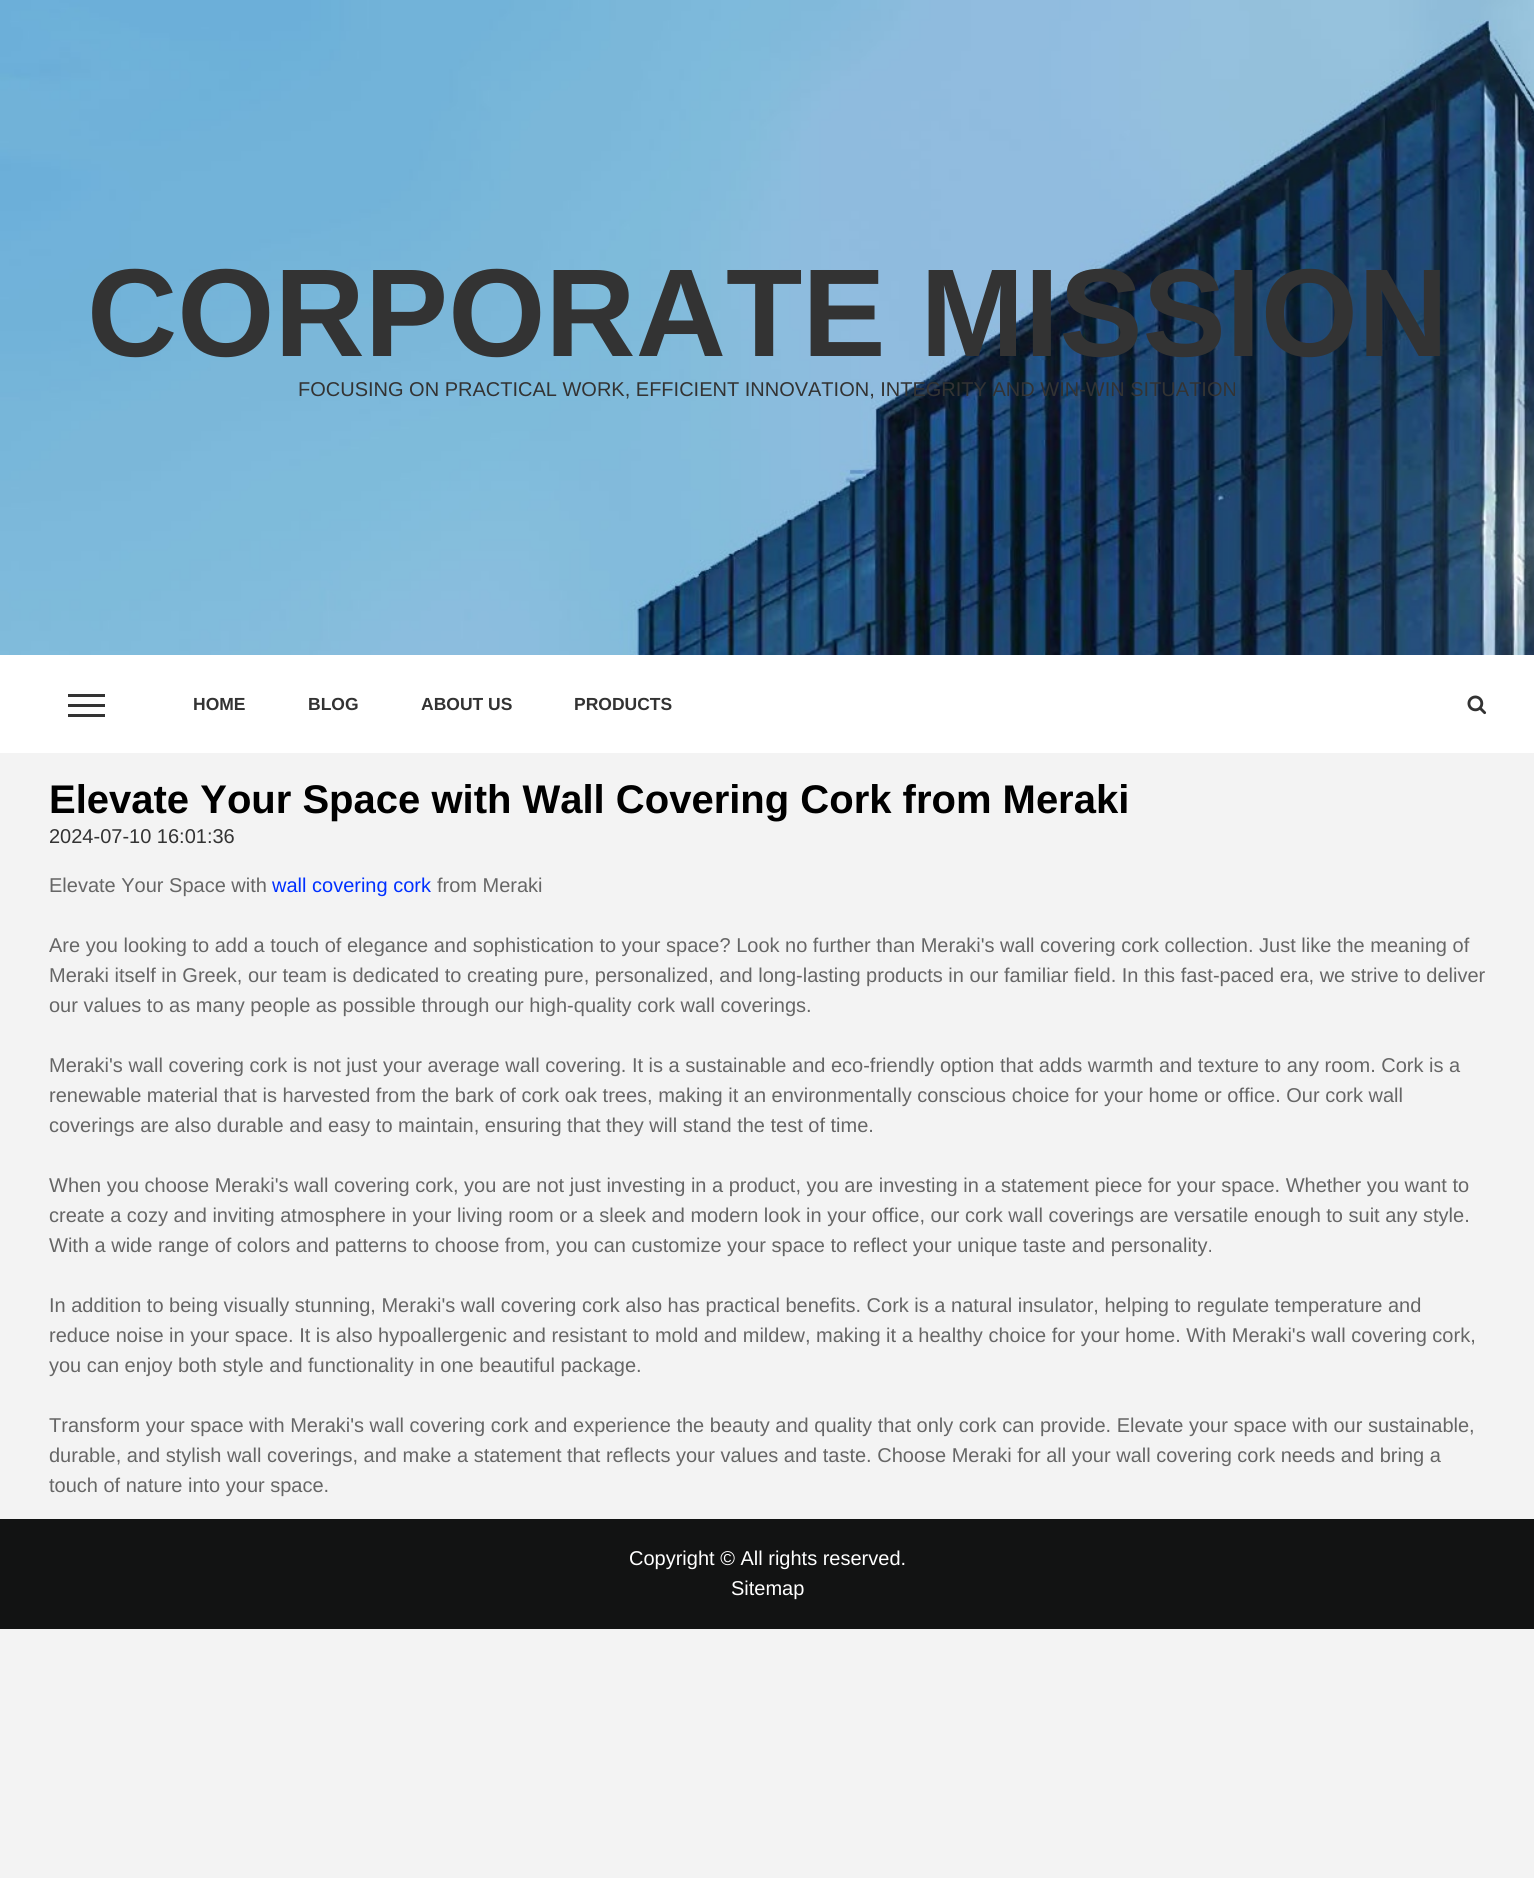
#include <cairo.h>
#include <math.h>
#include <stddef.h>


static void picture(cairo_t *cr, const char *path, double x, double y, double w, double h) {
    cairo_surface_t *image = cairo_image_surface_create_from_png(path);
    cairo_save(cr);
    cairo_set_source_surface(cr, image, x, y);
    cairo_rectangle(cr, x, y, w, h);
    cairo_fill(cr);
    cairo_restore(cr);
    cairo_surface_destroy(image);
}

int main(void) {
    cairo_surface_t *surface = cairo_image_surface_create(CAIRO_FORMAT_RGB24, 1534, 1878);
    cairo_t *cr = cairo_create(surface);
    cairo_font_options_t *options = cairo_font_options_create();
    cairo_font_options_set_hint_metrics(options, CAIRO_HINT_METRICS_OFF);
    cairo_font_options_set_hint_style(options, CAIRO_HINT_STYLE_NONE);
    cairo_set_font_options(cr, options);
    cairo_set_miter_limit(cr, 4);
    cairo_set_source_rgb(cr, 0.953, 0.953, 0.953);
    cairo_paint(cr);
    picture(cr, "img1.png", 0, 0, 1534, 655);
    cairo_select_font_face(cr, "Liberation Sans", CAIRO_FONT_SLANT_NORMAL, CAIRO_FONT_WEIGHT_BOLD);
    cairo_set_font_size(cr, 125);
    cairo_set_source_rgb(cr, 0.2, 0.2, 0.2);
    cairo_move_to(cr, 87, 356);
    cairo_show_text(cr, "CORPORATE MISSION");
    cairo_select_font_face(cr, "Liberation Sans", CAIRO_FONT_SLANT_NORMAL, CAIRO_FONT_WEIGHT_NORMAL);
    cairo_set_font_size(cr, 20);
    cairo_move_to(cr, 298, 396);
    cairo_show_text(cr, "FOCUSING ON PRACTICAL WORK, EFFICIENT INNOVATION, INTEGRITY AND WIN-WIN SITUATION");
    cairo_set_source_rgb(cr, 1, 1, 1);
    cairo_rectangle(cr, 0, 655, 1534, 98);
    cairo_fill(cr);
    cairo_set_source_rgb(cr, 0.2, 0.2, 0.2);
    cairo_rectangle(cr, 68, 694, 37, 3);
    cairo_fill(cr);
    cairo_rectangle(cr, 68, 704, 37, 3);
    cairo_fill(cr);
    cairo_rectangle(cr, 68, 714, 37, 3);
    cairo_fill(cr);
    cairo_select_font_face(cr, "Liberation Sans", CAIRO_FONT_SLANT_NORMAL, CAIRO_FONT_WEIGHT_BOLD);
    cairo_set_font_size(cr, 17.5);
    cairo_move_to(cr, 193, 710);
    cairo_show_text(cr, "HOME");
    cairo_move_to(cr, 308, 710);
    cairo_show_text(cr, "BLOG");
    cairo_move_to(cr, 421, 710);
    cairo_show_text(cr, "ABOUT US");
    cairo_move_to(cr, 574, 710);
    cairo_show_text(cr, "PRODUCTS");
    picture(cr, "img2.png", 1467, 695, 20, 20);
    cairo_set_font_size(cr, 40);
    cairo_set_source_rgb(cr, 0, 0, 0);
    cairo_move_to(cr, 49, 813);
    cairo_show_text(cr, "Elevate Your Space with Wall Covering Cork from Meraki");
    cairo_select_font_face(cr, "Liberation Sans", CAIRO_FONT_SLANT_NORMAL, CAIRO_FONT_WEIGHT_NORMAL);
    cairo_set_font_size(cr, 20);
    cairo_set_source_rgb(cr, 0.2, 0.2, 0.2);
    cairo_move_to(cr, 49, 843);
    cairo_show_text(cr, "2024-07-10 16:01:36");
    cairo_set_source_rgb(cr, 0.4, 0.4, 0.4);
    cairo_move_to(cr, 49, 892);
    cairo_show_text(cr, "Elevate Your Space with");
    cairo_set_source_rgb(cr, 0, 0.188, 1);
    cairo_move_to(cr, 272, 892);
    cairo_show_text(cr, "wall covering cork");
    cairo_set_source_rgb(cr, 0.4, 0.4, 0.4);
    cairo_move_to(cr, 437, 892);
    cairo_show_text(cr, "from Meraki");
    cairo_move_to(cr, 49, 952);
    cairo_show_text(cr, "Are you looking to add a touch of elegance and sophistication to your space? Look no further than Meraki's wall covering cork collection. Just like the meaning of");
    cairo_move_to(cr, 49, 982);
    cairo_show_text(cr, "Meraki itself in Greek, our team is dedicated to creating pure, personalized, and long-lasting products in our familiar field. In this fast-paced era, we strive to deliver");
    cairo_move_to(cr, 49, 1012);
    cairo_show_text(cr, "our values to as many people as possible through our high-quality cork wall coverings.");
    cairo_move_to(cr, 49, 1072);
    cairo_show_text(cr, "Meraki's wall covering cork is not just your average wall covering. It is a sustainable and eco-friendly option that adds warmth and texture to any room. Cork is a");
    cairo_move_to(cr, 49, 1102);
    cairo_show_text(cr, "renewable material that is harvested from the bark of cork oak trees, making it an environmentally conscious choice for your home or office. Our cork wall");
    cairo_move_to(cr, 49, 1132);
    cairo_show_text(cr, "coverings are also durable and easy to maintain, ensuring that they will stand the test of time.");
    cairo_move_to(cr, 49, 1192);
    cairo_show_text(cr, "When you choose Meraki's wall covering cork, you are not just investing in a product, you are investing in a statement piece for your space. Whether you want to");
    cairo_move_to(cr, 49, 1222);
    cairo_show_text(cr, "create a cozy and inviting atmosphere in your living room or a sleek and modern look in your office, our cork wall coverings are versatile enough to suit any style.");
    cairo_move_to(cr, 49, 1252);
    cairo_show_text(cr, "With a wide range of colors and patterns to choose from, you can customize your space to reflect your unique taste and personality.");
    cairo_move_to(cr, 49, 1312);
    cairo_show_text(cr, "In addition to being visually stunning, Meraki's wall covering cork also has practical benefits. Cork is a natural insulator, helping to regulate temperature and");
    cairo_move_to(cr, 49, 1342);
    cairo_show_text(cr, "reduce noise in your space. It is also hypoallergenic and resistant to mold and mildew, making it a healthy choice for your home. With Meraki's wall covering cork,");
    cairo_move_to(cr, 49, 1372);
    cairo_show_text(cr, "you can enjoy both style and functionality in one beautiful package.");
    cairo_move_to(cr, 49, 1432);
    cairo_show_text(cr, "Transform your space with Meraki's wall covering cork and experience the beauty and quality that only cork can provide. Elevate your space with our sustainable,");
    cairo_move_to(cr, 49, 1462);
    cairo_show_text(cr, "durable, and stylish wall coverings, and make a statement that reflects your values and taste. Choose Meraki for all your wall covering cork needs and bring a");
    cairo_move_to(cr, 49, 1492);
    cairo_show_text(cr, "touch of nature into your space.");
    cairo_set_source_rgb(cr, 0.071, 0.075, 0.078);
    cairo_rectangle(cr, 0, 1519, 1534, 110);
    cairo_fill(cr);
    cairo_set_source_rgb(cr, 1, 1, 1);
    cairo_move_to(cr, 629, 1565);
    cairo_show_text(cr, "Copyright © All rights reserved.");
    cairo_move_to(cr, 731, 1595);
    cairo_show_text(cr, "Sitemap");
    cairo_surface_write_to_png(surface, "page.png");
    cairo_font_options_destroy(options);
    cairo_destroy(cr);
    cairo_surface_destroy(surface);
    return 0;
}
